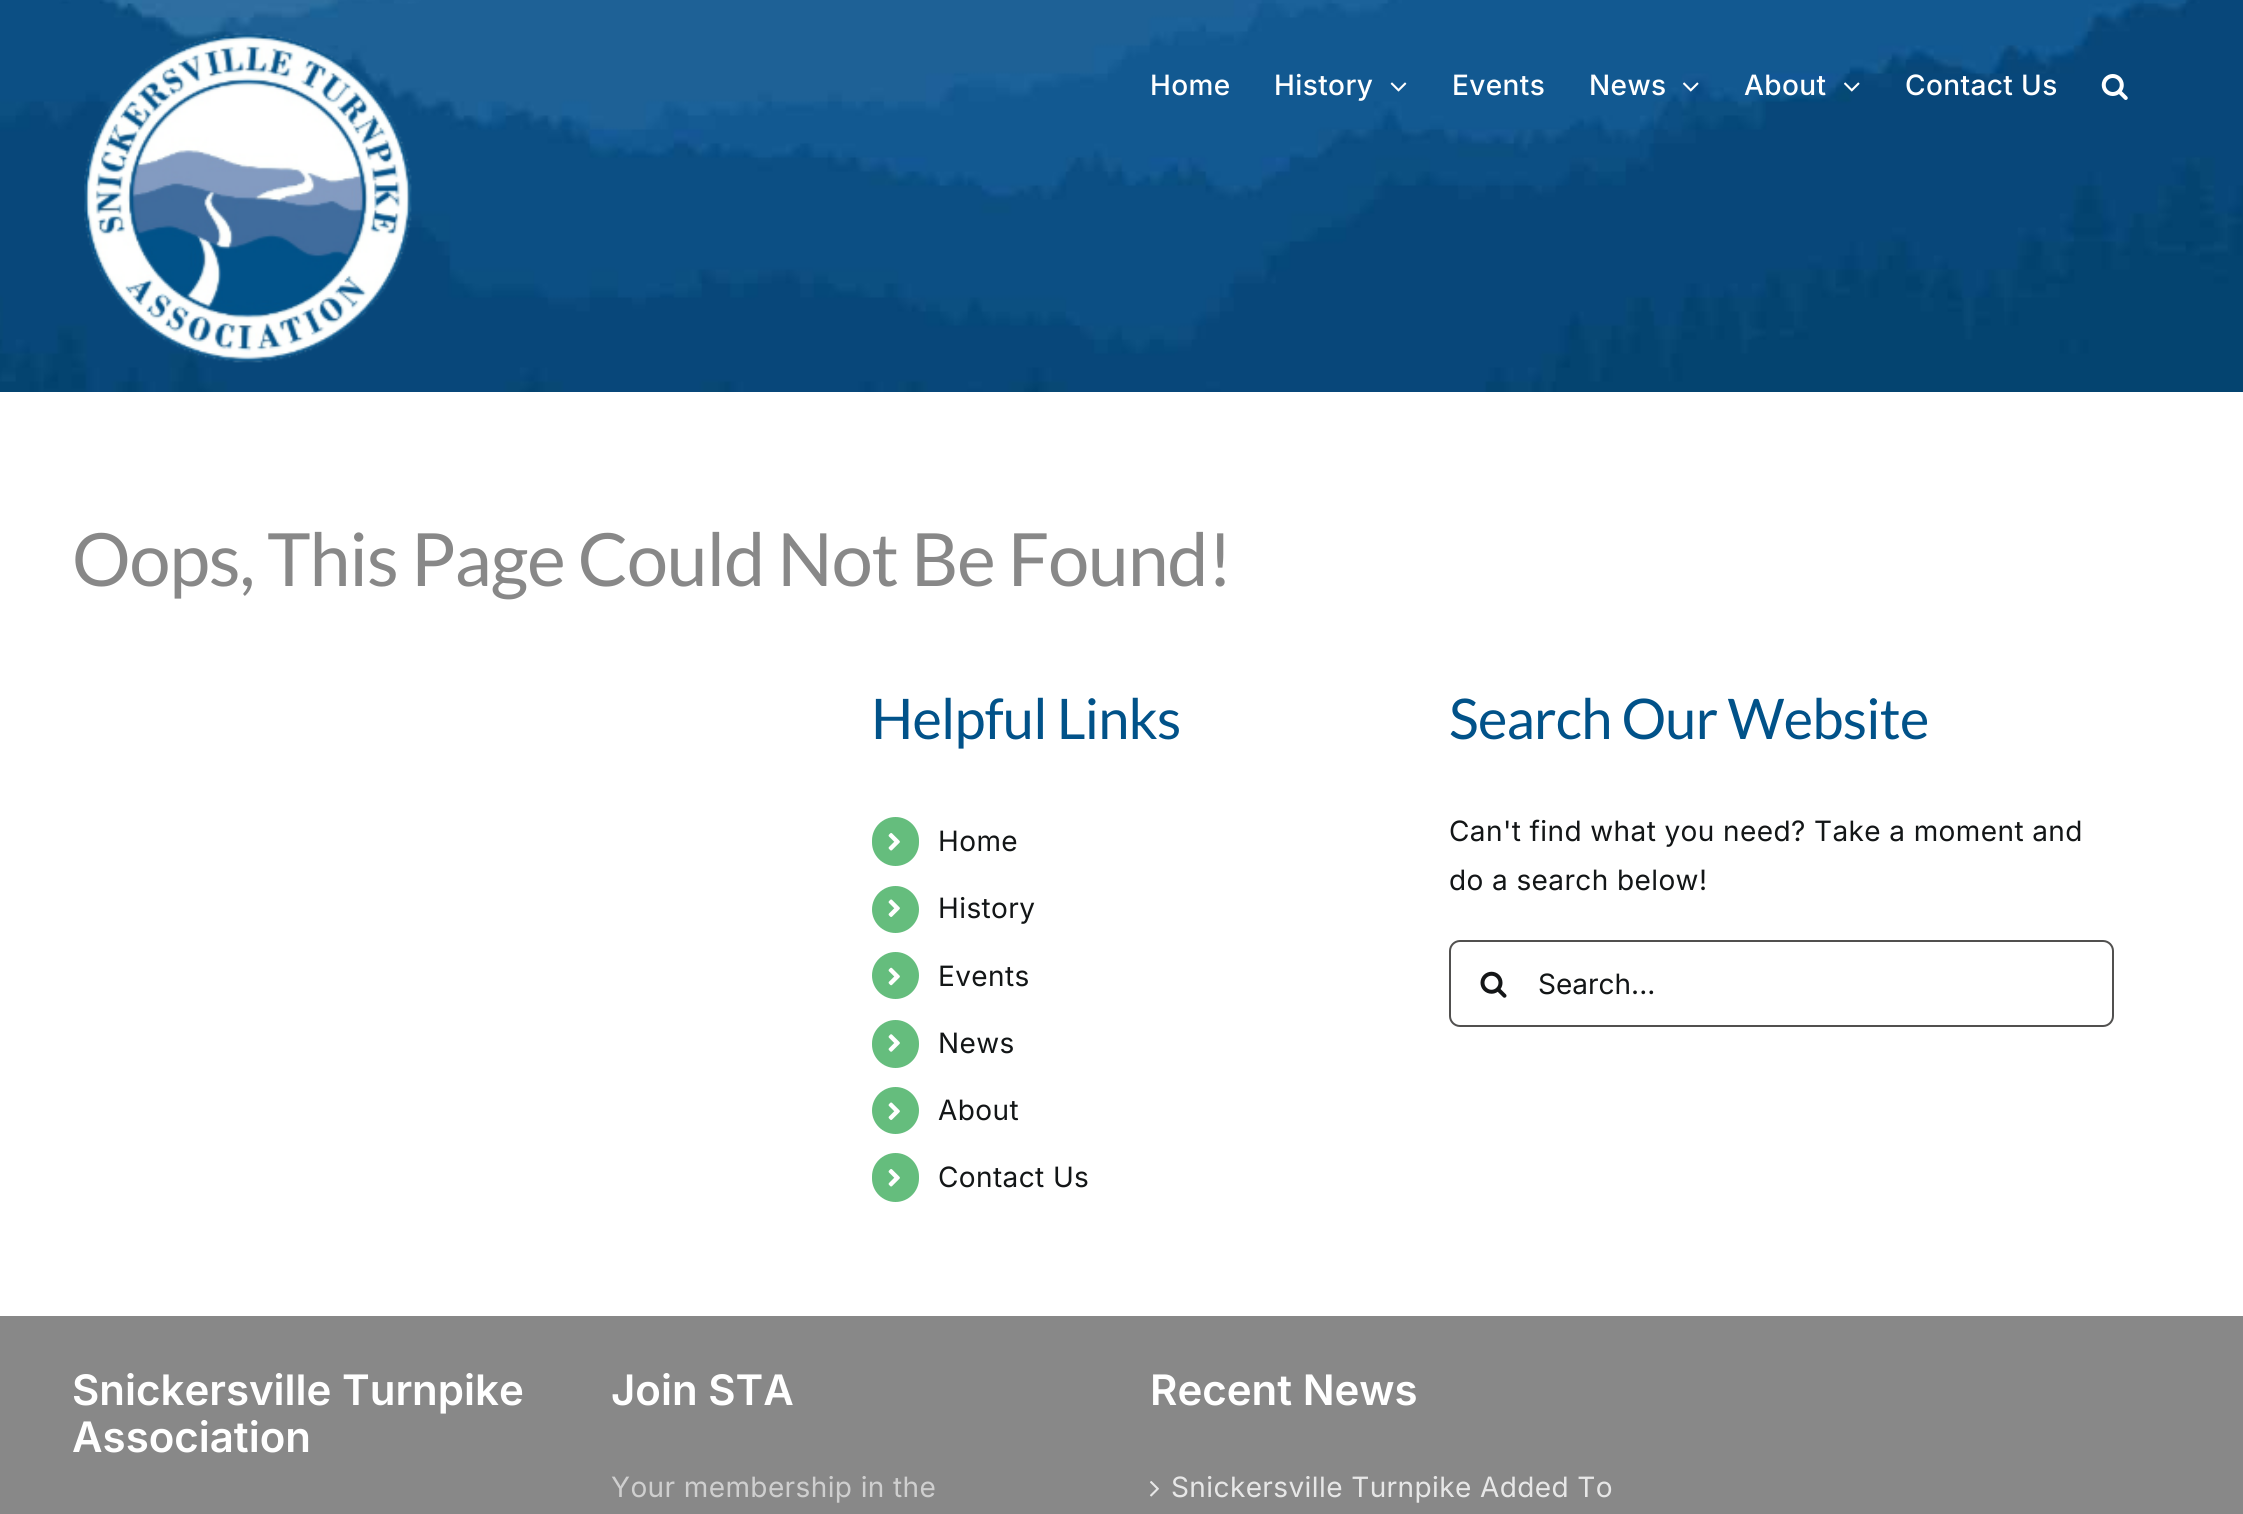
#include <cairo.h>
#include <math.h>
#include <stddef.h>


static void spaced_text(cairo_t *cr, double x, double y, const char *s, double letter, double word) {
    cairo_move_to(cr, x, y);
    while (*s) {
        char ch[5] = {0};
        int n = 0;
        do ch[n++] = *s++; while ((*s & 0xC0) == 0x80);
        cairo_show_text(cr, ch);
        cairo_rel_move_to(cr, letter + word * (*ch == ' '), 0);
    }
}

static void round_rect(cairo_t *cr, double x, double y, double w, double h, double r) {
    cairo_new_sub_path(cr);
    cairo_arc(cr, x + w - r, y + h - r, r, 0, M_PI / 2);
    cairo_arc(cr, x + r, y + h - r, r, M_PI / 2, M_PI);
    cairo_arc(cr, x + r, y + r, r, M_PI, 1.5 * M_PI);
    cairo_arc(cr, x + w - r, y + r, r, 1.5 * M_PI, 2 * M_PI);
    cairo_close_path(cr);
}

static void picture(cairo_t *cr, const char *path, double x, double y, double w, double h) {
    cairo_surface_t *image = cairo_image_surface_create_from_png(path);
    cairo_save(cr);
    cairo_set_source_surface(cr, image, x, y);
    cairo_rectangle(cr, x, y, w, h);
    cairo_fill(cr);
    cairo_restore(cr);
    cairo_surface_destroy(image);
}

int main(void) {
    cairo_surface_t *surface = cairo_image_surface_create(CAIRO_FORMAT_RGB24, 2243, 1514);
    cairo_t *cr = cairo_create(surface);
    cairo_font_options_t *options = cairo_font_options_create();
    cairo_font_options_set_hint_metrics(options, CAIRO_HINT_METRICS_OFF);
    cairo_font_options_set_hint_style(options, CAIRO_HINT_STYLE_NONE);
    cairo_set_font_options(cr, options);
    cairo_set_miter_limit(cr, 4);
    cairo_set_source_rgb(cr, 1, 1, 1);
    cairo_paint(cr);
    picture(cr, "img1.png", 0, 0, 2243, 392);
    picture(cr, "img2.png", 84, 33, 328, 330);
    cairo_select_font_face(cr, "Inter Medium", CAIRO_FONT_SLANT_NORMAL, CAIRO_FONT_WEIGHT_NORMAL);
    cairo_set_font_size(cr, 28);
    cairo_set_source_rgb(cr, 1, 1, 1);
    spaced_text(cr, 1150, 95, "Home", 0.4, 0);
    spaced_text(cr, 1274, 95, "History", 0.4, 0);
    picture(cr, "img3.png", 1390, 82, 17, 10);
    spaced_text(cr, 1452, 95, "Events", 0.4, 0);
    spaced_text(cr, 1589, 95, "News", 0.4, 0);
    picture(cr, "img4.png", 1683, 82, 16, 10);
    spaced_text(cr, 1744, 95, "About", 0.4, 0);
    picture(cr, "img5.png", 1844, 82, 16, 10);
    spaced_text(cr, 1905, 95, "Contact Us", 0.4, 0);
    picture(cr, "img6.png", 2101, 74, 27, 26);
    cairo_select_font_face(cr, "Lato", CAIRO_FONT_SLANT_NORMAL, CAIRO_FONT_WEIGHT_NORMAL);
    cairo_set_font_size(cr, 73.5);
    cairo_set_source_rgb(cr, 0.533, 0.533, 0.533);
    spaced_text(cr, 72, 586, "Oops, This Page Could Not Be Found!", -1.1, 0);
    cairo_set_font_size(cr, 56);
    cairo_set_source_rgb(cr, 0.004, 0.322, 0.537);
    spaced_text(cr, 871, 739, "Helpful Links", -0.8, 0);
    cairo_set_source_rgb(cr, 0.396, 0.741, 0.49);
    round_rect(cr, 872, 817, 47, 49, 23.5);
    cairo_fill(cr);
    picture(cr, "img7.png", 888, 833, 12, 18);
    cairo_select_font_face(cr, "Inter", CAIRO_FONT_SLANT_NORMAL, CAIRO_FONT_WEIGHT_NORMAL);
    cairo_set_font_size(cr, 28);
    cairo_set_source_rgb(cr, 0.078, 0.086, 0.09);
    spaced_text(cr, 938, 851, "Home", 0.4, 0);
    cairo_set_source_rgb(cr, 0.396, 0.741, 0.49);
    cairo_new_path(cr);
    cairo_arc(cr, 895.5, 909.5, 23.5, 0, 2 * M_PI);
    cairo_fill(cr);
    picture(cr, "img8.png", 888, 899, 12, 18);
    cairo_set_source_rgb(cr, 0.078, 0.086, 0.09);
    spaced_text(cr, 938, 918, "History", 0.4, 0);
    cairo_set_source_rgb(cr, 0.396, 0.741, 0.49);
    cairo_new_path(cr);
    cairo_arc(cr, 895.5, 975.5, 23.5, 0, 2 * M_PI);
    cairo_fill(cr);
    picture(cr, "img9.png", 888, 967, 12, 19);
    cairo_set_source_rgb(cr, 0.078, 0.086, 0.09);
    spaced_text(cr, 938, 986, "Events", 0.4, 0);
    cairo_set_source_rgb(cr, 0.396, 0.741, 0.49);
    round_rect(cr, 872, 1020, 47, 48, 23.5);
    cairo_fill(cr);
    picture(cr, "img10.png", 888, 1034, 12, 18);
    cairo_set_source_rgb(cr, 0.078, 0.086, 0.09);
    spaced_text(cr, 938, 1053, "News", 0.4, 0);
    cairo_set_source_rgb(cr, 0.396, 0.741, 0.49);
    cairo_new_path(cr);
    cairo_arc(cr, 895.5, 1110.5, 23.5, 0, 2 * M_PI);
    cairo_fill(cr);
    picture(cr, "img8.png", 888, 1102, 12, 18);
    cairo_set_source_rgb(cr, 0.078, 0.086, 0.09);
    spaced_text(cr, 938, 1120, "About", 0.4, 0);
    cairo_set_source_rgb(cr, 0.396, 0.741, 0.49);
    round_rect(cr, 872, 1153, 47, 49, 23.5);
    cairo_fill(cr);
    picture(cr, "img7.png", 888, 1169, 12, 18);
    cairo_set_source_rgb(cr, 0.078, 0.086, 0.09);
    spaced_text(cr, 938, 1187, "Contact Us", 0.4, 0);
    cairo_select_font_face(cr, "Lato", CAIRO_FONT_SLANT_NORMAL, CAIRO_FONT_WEIGHT_NORMAL);
    cairo_set_font_size(cr, 56);
    cairo_set_source_rgb(cr, 0.004, 0.322, 0.537);
    spaced_text(cr, 1449, 739, "Search Our Website", -0.8, 0);
    cairo_select_font_face(cr, "Inter", CAIRO_FONT_SLANT_NORMAL, CAIRO_FONT_WEIGHT_NORMAL);
    cairo_set_font_size(cr, 28);
    cairo_set_source_rgb(cr, 0.078, 0.086, 0.09);
    spaced_text(cr, 1449, 841, "Can't find what you need? Take a moment and", 0.4, 0);
    spaced_text(cr, 1449, 890, "do a search below!", 0.4, 0);
    round_rect(cr, 1450, 941, 663, 85, 10);
    cairo_set_source_rgb(cr, 0.318, 0.314, 0.31);
    cairo_stroke(cr);
    picture(cr, "img11.png", 1480, 971, 27, 27);
    cairo_set_source_rgb(cr, 0.078, 0.086, 0.09);
    cairo_move_to(cr, 1538, 994);
    cairo_show_text(cr, "Search...");
    cairo_set_source_rgb(cr, 0.533, 0.533, 0.533);
    cairo_rectangle(cr, 0, 1316, 2243, 198);
    cairo_fill(cr);
    cairo_select_font_face(cr, "Inter SemiBold", CAIRO_FONT_SLANT_NORMAL, CAIRO_FONT_WEIGHT_NORMAL);
    cairo_set_font_size(cr, 42);
    cairo_set_source_rgb(cr, 1, 1, 1);
    cairo_move_to(cr, 72, 1405);
    cairo_show_text(cr, "Snickersville Turnpike");
    cairo_move_to(cr, 72, 1452);
    cairo_show_text(cr, "Association");
    cairo_move_to(cr, 611, 1405);
    cairo_show_text(cr, "Join STA");
    cairo_select_font_face(cr, "Inter", CAIRO_FONT_SLANT_NORMAL, CAIRO_FONT_WEIGHT_NORMAL);
    cairo_set_font_size(cr, 28);
    cairo_set_source_rgb(cr, 0.812, 0.812, 0.812);
    spaced_text(cr, 611, 1497, "Your membership in the", 0.4, 0);
    cairo_select_font_face(cr, "Inter SemiBold", CAIRO_FONT_SLANT_NORMAL, CAIRO_FONT_WEIGHT_NORMAL);
    cairo_set_font_size(cr, 42);
    cairo_set_source_rgb(cr, 1, 1, 1);
    cairo_move_to(cr, 1150, 1405);
    cairo_show_text(cr, "Recent News");
    picture(cr, "img12.png", 1150, 1481, 9, 16);
    cairo_select_font_face(cr, "Inter", CAIRO_FONT_SLANT_NORMAL, CAIRO_FONT_WEIGHT_NORMAL);
    cairo_set_font_size(cr, 28);
    cairo_set_source_rgb(cr, 0.906, 0.906, 0.906);
    spaced_text(cr, 1171, 1497, "Snickersville Turnpike Added To", 0.4, 0);
    cairo_surface_write_to_png(surface, "page.png");
    cairo_font_options_destroy(options);
    cairo_destroy(cr);
    cairo_surface_destroy(surface);
    return 0;
}
